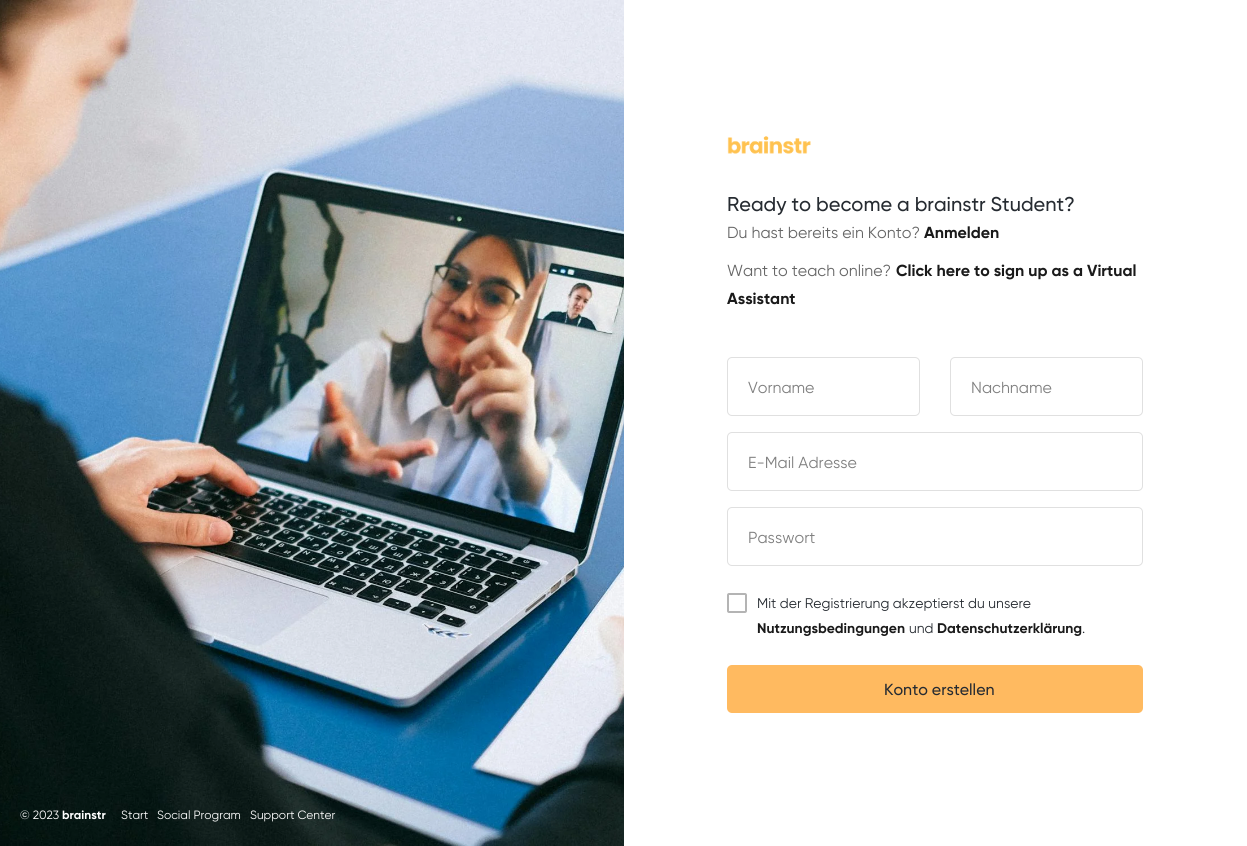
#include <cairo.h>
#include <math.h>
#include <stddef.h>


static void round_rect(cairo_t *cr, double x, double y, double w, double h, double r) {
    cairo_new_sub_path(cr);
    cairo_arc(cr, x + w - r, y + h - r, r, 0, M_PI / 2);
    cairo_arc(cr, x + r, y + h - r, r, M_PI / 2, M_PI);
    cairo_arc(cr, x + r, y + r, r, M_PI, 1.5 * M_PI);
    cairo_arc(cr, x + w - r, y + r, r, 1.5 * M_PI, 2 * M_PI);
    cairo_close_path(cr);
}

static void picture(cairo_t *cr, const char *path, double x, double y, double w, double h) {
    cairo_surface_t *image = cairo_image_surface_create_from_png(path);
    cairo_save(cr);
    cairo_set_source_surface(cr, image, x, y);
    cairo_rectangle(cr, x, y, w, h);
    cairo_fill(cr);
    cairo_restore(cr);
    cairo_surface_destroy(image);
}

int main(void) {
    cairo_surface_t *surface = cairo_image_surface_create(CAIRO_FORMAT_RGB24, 1247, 846);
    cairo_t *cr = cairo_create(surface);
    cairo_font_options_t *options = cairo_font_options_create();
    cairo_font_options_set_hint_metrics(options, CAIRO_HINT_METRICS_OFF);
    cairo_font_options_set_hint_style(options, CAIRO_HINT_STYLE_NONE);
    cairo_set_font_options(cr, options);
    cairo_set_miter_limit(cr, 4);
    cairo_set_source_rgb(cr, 1, 1, 1);
    cairo_paint(cr);
    picture(cr, "img1.png", 727, 136, 84, 18);
    cairo_select_font_face(cr, "Gilroy Medium", CAIRO_FONT_SLANT_NORMAL, CAIRO_FONT_WEIGHT_NORMAL);
    cairo_set_font_size(cr, 20);
    cairo_set_source_rgb(cr, 0.149, 0.169, 0.192);
    cairo_move_to(cr, 727, 211);
    cairo_show_text(cr, "Ready to become a brainstr Student?");
    cairo_select_font_face(cr, "Gilroy", CAIRO_FONT_SLANT_NORMAL, CAIRO_FONT_WEIGHT_NORMAL);
    cairo_set_font_size(cr, 16);
    cairo_set_source_rgb(cr, 0.4, 0.4, 0.4);
    cairo_move_to(cr, 727, 238);
    cairo_show_text(cr, "Du hast bereits ein Konto?");
    cairo_select_font_face(cr, "Gilroy", CAIRO_FONT_SLANT_NORMAL, CAIRO_FONT_WEIGHT_BOLD);
    cairo_set_source_rgb(cr, 0.102, 0.102, 0.102);
    cairo_move_to(cr, 924, 238);
    cairo_show_text(cr, "Anmelden");
    cairo_select_font_face(cr, "Gilroy", CAIRO_FONT_SLANT_NORMAL, CAIRO_FONT_WEIGHT_NORMAL);
    cairo_set_source_rgb(cr, 0.4, 0.4, 0.4);
    cairo_move_to(cr, 727, 276);
    cairo_show_text(cr, "Want to teach online?");
    cairo_select_font_face(cr, "Gilroy", CAIRO_FONT_SLANT_NORMAL, CAIRO_FONT_WEIGHT_BOLD);
    cairo_set_source_rgb(cr, 0.102, 0.102, 0.102);
    cairo_move_to(cr, 896, 276);
    cairo_show_text(cr, "Click here to sign up as a Virtual");
    cairo_move_to(cr, 727, 304);
    cairo_show_text(cr, "Assistant");
    round_rect(cr, 727.5, 357.5, 192, 58, 4.5);
    cairo_set_source_rgb(cr, 0.878, 0.878, 0.878);
    cairo_set_line_width(cr, 1);
    cairo_stroke(cr);
    cairo_select_font_face(cr, "Gilroy", CAIRO_FONT_SLANT_NORMAL, CAIRO_FONT_WEIGHT_NORMAL);
    cairo_set_source_rgb(cr, 0.502, 0.502, 0.502);
    cairo_move_to(cr, 748, 393);
    cairo_show_text(cr, "Vorname");
    round_rect(cr, 950.5, 357.5, 192, 58, 4.5);
    cairo_set_source_rgb(cr, 0.878, 0.878, 0.878);
    cairo_stroke(cr);
    cairo_set_source_rgb(cr, 0.502, 0.502, 0.502);
    cairo_move_to(cr, 971, 393);
    cairo_show_text(cr, "Nachname");
    round_rect(cr, 727.5, 432.5, 415, 58, 4.5);
    cairo_set_source_rgb(cr, 0.878, 0.878, 0.878);
    cairo_stroke(cr);
    cairo_set_source_rgb(cr, 0.502, 0.502, 0.502);
    cairo_move_to(cr, 748, 468);
    cairo_show_text(cr, "E-Mail Adresse");
    round_rect(cr, 727.5, 507.5, 415, 58, 4.5);
    cairo_set_source_rgb(cr, 0.878, 0.878, 0.878);
    cairo_stroke(cr);
    cairo_set_source_rgb(cr, 0.502, 0.502, 0.502);
    cairo_move_to(cr, 748, 543);
    cairo_show_text(cr, "Passwort");
    round_rect(cr, 728, 594, 18, 18, 1);
    cairo_set_source_rgb(cr, 0.706, 0.706, 0.706);
    cairo_set_line_width(cr, 2);
    cairo_stroke(cr);
    cairo_set_font_size(cr, 14);
    cairo_set_source_rgb(cr, 0.149, 0.169, 0.192);
    cairo_move_to(cr, 757, 608);
    cairo_show_text(cr, "Mit der Registrierung akzeptierst du unsere");
    cairo_select_font_face(cr, "Gilroy", CAIRO_FONT_SLANT_NORMAL, CAIRO_FONT_WEIGHT_BOLD);
    cairo_set_source_rgb(cr, 0.102, 0.102, 0.102);
    cairo_move_to(cr, 757, 633);
    cairo_show_text(cr, "Nutzungsbedingungen");
    cairo_select_font_face(cr, "Gilroy", CAIRO_FONT_SLANT_NORMAL, CAIRO_FONT_WEIGHT_NORMAL);
    cairo_set_source_rgb(cr, 0.149, 0.169, 0.192);
    cairo_move_to(cr, 909, 633);
    cairo_show_text(cr, "und");
    cairo_select_font_face(cr, "Gilroy", CAIRO_FONT_SLANT_NORMAL, CAIRO_FONT_WEIGHT_BOLD);
    cairo_set_source_rgb(cr, 0.102, 0.102, 0.102);
    cairo_move_to(cr, 937, 633);
    cairo_show_text(cr, "Datenschutzerklärung");
    cairo_select_font_face(cr, "Gilroy", CAIRO_FONT_SLANT_NORMAL, CAIRO_FONT_WEIGHT_NORMAL);
    cairo_set_source_rgb(cr, 0.149, 0.169, 0.192);
    cairo_move_to(cr, 1082, 633);
    cairo_show_text(cr, ".");
    cairo_set_source_rgb(cr, 1, 0.729, 0.376);
    round_rect(cr, 727, 665, 416, 48, 5);
    cairo_fill(cr);
    cairo_select_font_face(cr, "Gilroy Medium", CAIRO_FONT_SLANT_NORMAL, CAIRO_FONT_WEIGHT_NORMAL);
    cairo_set_font_size(cr, 16);
    cairo_set_source_rgb(cr, 0.149, 0.169, 0.192);
    cairo_move_to(cr, 884, 695);
    cairo_show_text(cr, "Konto erstellen");
    picture(cr, "img2.png", 0, 0, 624, 846);
    cairo_select_font_face(cr, "Gilroy", CAIRO_FONT_SLANT_NORMAL, CAIRO_FONT_WEIGHT_NORMAL);
    cairo_set_font_size(cr, 12);
    cairo_set_source_rgb(cr, 1, 1, 1);
    cairo_move_to(cr, 20, 819);
    cairo_show_text(cr, "© 2023");
    cairo_select_font_face(cr, "Gilroy", CAIRO_FONT_SLANT_NORMAL, CAIRO_FONT_WEIGHT_BOLD);
    cairo_move_to(cr, 62, 819);
    cairo_show_text(cr, "brainstr");
    cairo_select_font_face(cr, "Gilroy", CAIRO_FONT_SLANT_NORMAL, CAIRO_FONT_WEIGHT_NORMAL);
    cairo_move_to(cr, 121, 819);
    cairo_show_text(cr, "Start");
    cairo_move_to(cr, 157, 819);
    cairo_show_text(cr, "Social Program");
    cairo_move_to(cr, 250, 819);
    cairo_show_text(cr, "Support Center");
    cairo_surface_write_to_png(surface, "page.png");
    cairo_font_options_destroy(options);
    cairo_destroy(cr);
    cairo_surface_destroy(surface);
    return 0;
}
